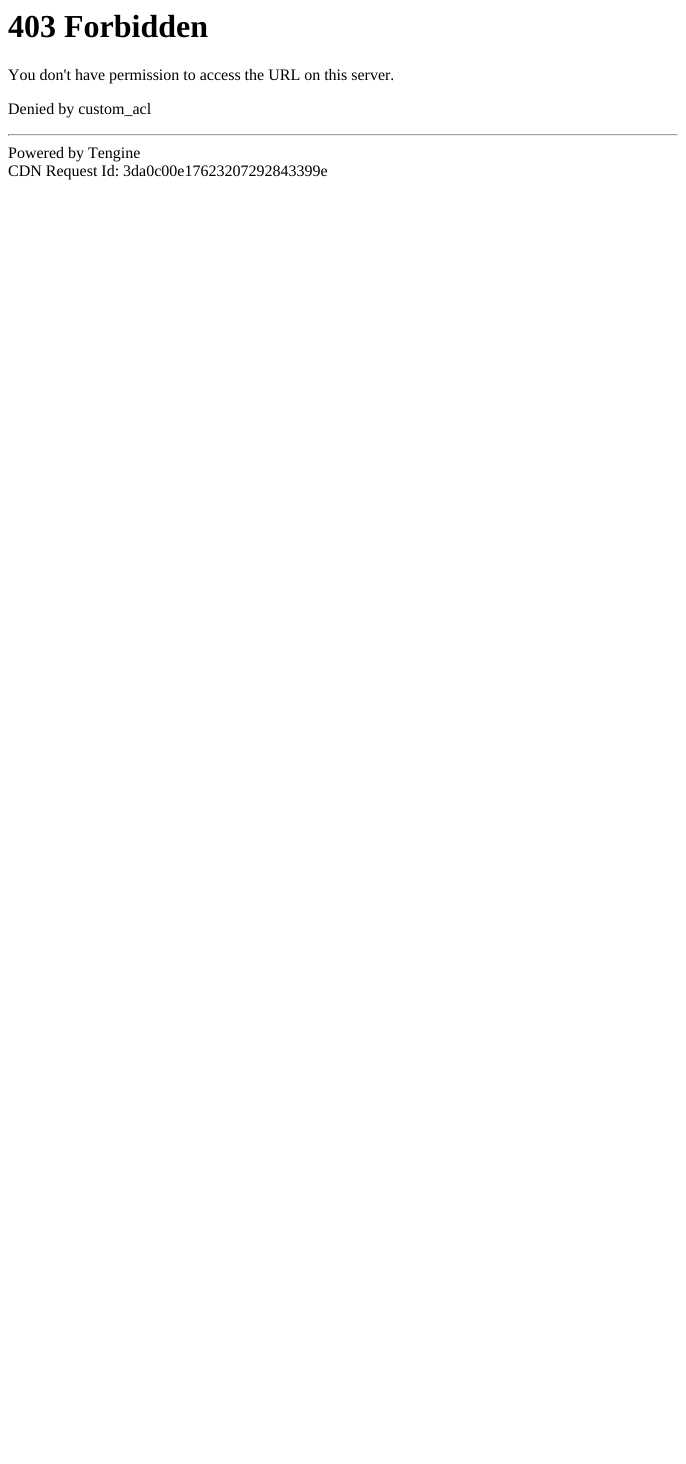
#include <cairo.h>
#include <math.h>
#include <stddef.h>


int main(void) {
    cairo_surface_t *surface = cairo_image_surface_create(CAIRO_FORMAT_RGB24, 686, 1464);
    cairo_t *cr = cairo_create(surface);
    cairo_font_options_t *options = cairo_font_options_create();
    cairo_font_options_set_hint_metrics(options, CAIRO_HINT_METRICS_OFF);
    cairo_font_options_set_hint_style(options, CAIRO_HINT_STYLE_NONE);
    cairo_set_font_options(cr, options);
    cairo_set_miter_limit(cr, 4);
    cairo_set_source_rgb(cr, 1, 1, 1);
    cairo_paint(cr);
    cairo_select_font_face(cr, "Liberation Serif", CAIRO_FONT_SLANT_NORMAL, CAIRO_FONT_WEIGHT_BOLD);
    cairo_set_font_size(cr, 32);
    cairo_set_source_rgb(cr, 0, 0, 0);
    cairo_move_to(cr, 8, 37);
    cairo_show_text(cr, "403 Forbidden");
    cairo_select_font_face(cr, "Liberation Serif", CAIRO_FONT_SLANT_NORMAL, CAIRO_FONT_WEIGHT_NORMAL);
    cairo_set_font_size(cr, 16);
    cairo_move_to(cr, 8, 80);
    cairo_show_text(cr, "You don't have permission to access the URL on this server.");
    cairo_move_to(cr, 8, 114);
    cairo_show_text(cr, "Denied by custom_acl");
    cairo_set_source_rgb(cr, 0.624, 0.624, 0.624);
    cairo_rectangle(cr, 8, 134, 670, 1);
    cairo_fill(cr);
    cairo_set_source_rgb(cr, 0.933, 0.933, 0.933);
    cairo_rectangle(cr, 677, 134, 1, 2);
    cairo_fill(cr);
    cairo_rectangle(cr, 8, 135, 670, 1);
    cairo_fill(cr);
    cairo_set_source_rgb(cr, 0.624, 0.624, 0.624);
    cairo_rectangle(cr, 8, 134, 1, 2);
    cairo_fill(cr);
    cairo_set_source_rgb(cr, 0, 0, 0);
    cairo_move_to(cr, 8, 158);
    cairo_show_text(cr, "Powered by Tengine");
    cairo_move_to(cr, 8, 176);
    cairo_show_text(cr, "CDN Request Id: 3da0c00e17623207292843399e");
    cairo_surface_write_to_png(surface, "page.png");
    cairo_font_options_destroy(options);
    cairo_destroy(cr);
    cairo_surface_destroy(surface);
    return 0;
}
